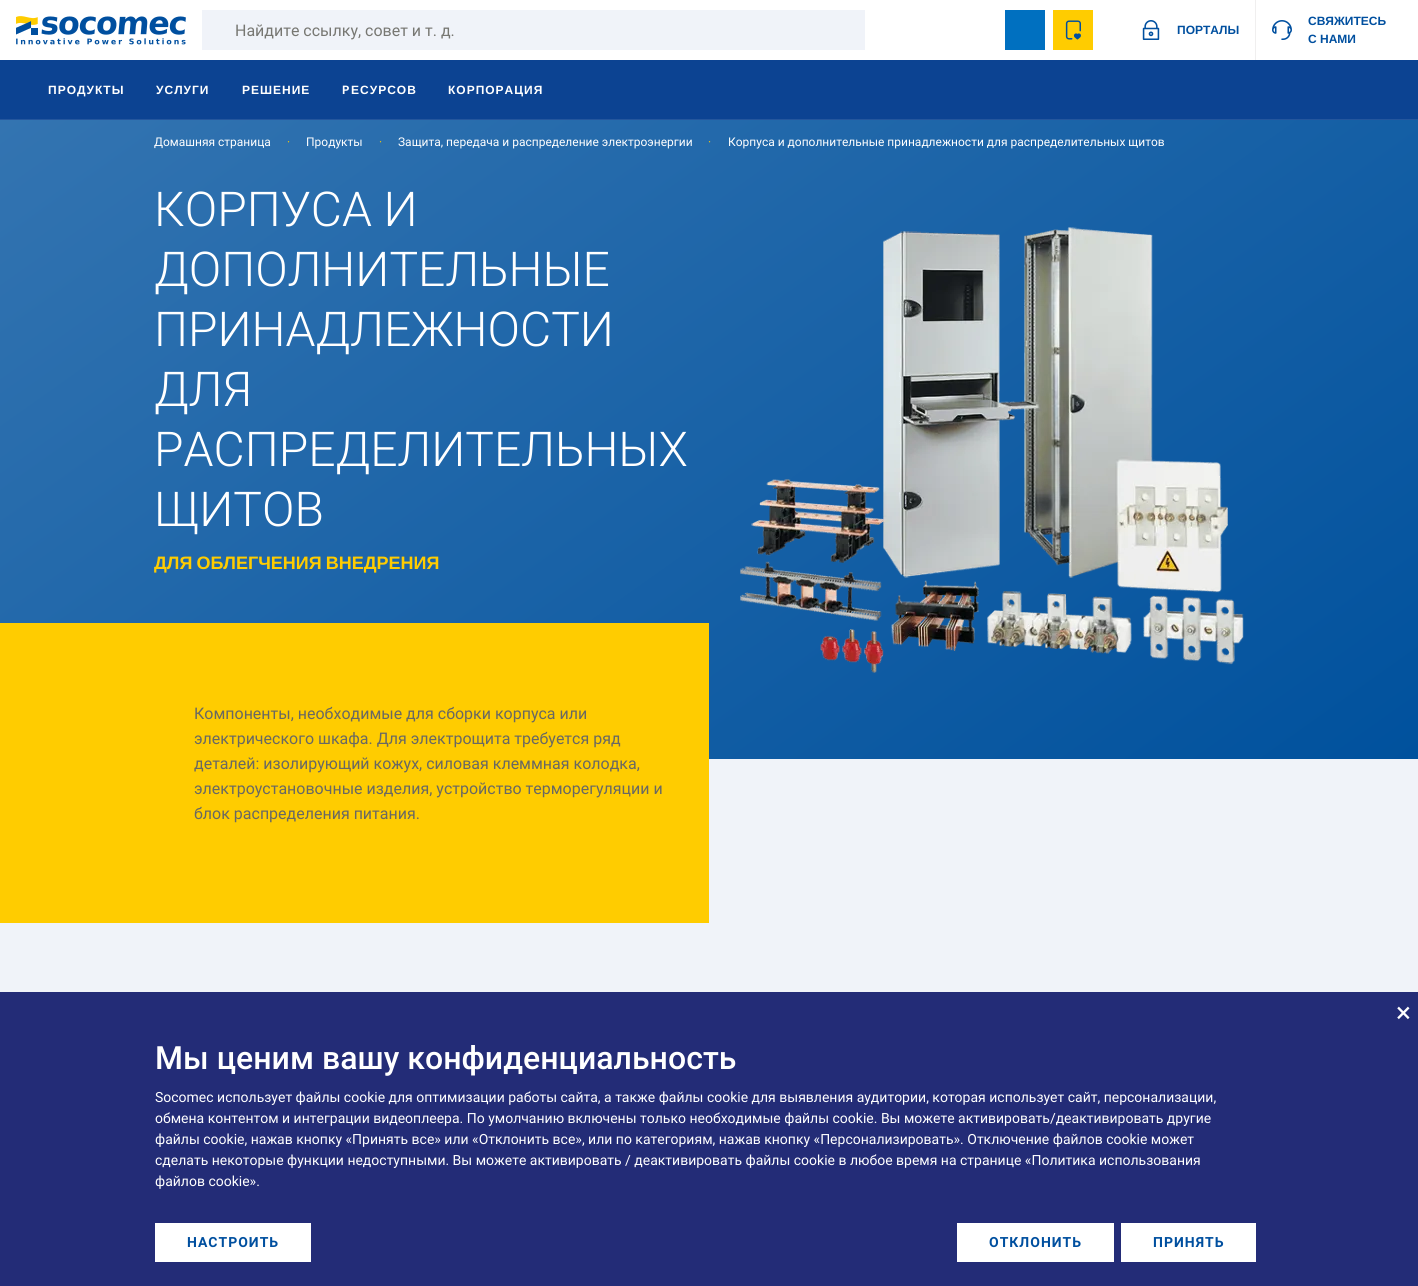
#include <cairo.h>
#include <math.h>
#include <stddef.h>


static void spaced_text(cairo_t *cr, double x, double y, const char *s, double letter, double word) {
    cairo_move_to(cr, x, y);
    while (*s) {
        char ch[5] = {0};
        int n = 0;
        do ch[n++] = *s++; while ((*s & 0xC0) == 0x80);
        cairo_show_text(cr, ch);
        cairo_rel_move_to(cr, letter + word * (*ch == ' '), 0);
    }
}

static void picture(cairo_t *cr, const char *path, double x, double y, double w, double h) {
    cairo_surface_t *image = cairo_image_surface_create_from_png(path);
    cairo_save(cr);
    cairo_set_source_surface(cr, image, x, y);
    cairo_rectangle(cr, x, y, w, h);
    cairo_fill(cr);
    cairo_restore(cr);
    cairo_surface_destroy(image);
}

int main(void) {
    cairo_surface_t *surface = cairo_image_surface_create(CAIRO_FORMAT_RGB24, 1418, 1286);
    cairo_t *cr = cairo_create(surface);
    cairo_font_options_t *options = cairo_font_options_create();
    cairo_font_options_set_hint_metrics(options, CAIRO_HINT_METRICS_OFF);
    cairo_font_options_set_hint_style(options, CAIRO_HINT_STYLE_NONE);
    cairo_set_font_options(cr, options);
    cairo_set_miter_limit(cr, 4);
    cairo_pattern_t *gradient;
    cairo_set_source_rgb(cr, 1, 1, 1);
    cairo_paint(cr);
    picture(cr, "img1.png", 16, 16, 170, 29);
    cairo_set_source_rgb(cr, 0.941, 0.953, 0.976);
    cairo_rectangle(cr, 202, 10, 663, 40);
    cairo_fill(cr);
    cairo_select_font_face(cr, "Roboto", CAIRO_FONT_SLANT_NORMAL, CAIRO_FONT_WEIGHT_NORMAL);
    cairo_set_font_size(cr, 16);
    cairo_set_source_rgb(cr, 0.467, 0.467, 0.447);
    cairo_move_to(cr, 235, 36);
    cairo_show_text(cr, "Найдите ссылку, совет и т. д.");
    cairo_set_source_rgb(cr, 0, 0.439, 0.753);
    cairo_rectangle(cr, 1005, 10, 40, 40);
    cairo_fill(cr);
    cairo_set_source_rgb(cr, 1, 0.8, 0);
    cairo_rectangle(cr, 1053, 10, 40, 40);
    cairo_fill(cr);
    picture(cr, "img2.png", 1065, 20, 16, 20);
    picture(cr, "img3.png", 1142, 20, 18, 20);
    cairo_select_font_face(cr, "Liberation Sans", CAIRO_FONT_SLANT_NORMAL, CAIRO_FONT_WEIGHT_BOLD);
    cairo_set_font_size(cr, 12);
    cairo_set_source_rgb(cr, 0, 0.31, 0.624);
    cairo_move_to(cr, 1177, 34);
    cairo_show_text(cr, "ПОРТАЛЫ");
    cairo_set_source_rgb(cr, 0.941, 0.937, 0.937);
    cairo_rectangle(cr, 1255, 0, 1, 60);
    cairo_fill(cr);
    picture(cr, "img4.png", 1272, 20, 20, 20);
    cairo_set_source_rgb(cr, 0, 0.31, 0.624);
    cairo_move_to(cr, 1308, 25);
    cairo_show_text(cr, "СВЯЖИТЕСЬ");
    cairo_move_to(cr, 1308, 43);
    cairo_show_text(cr, "С НАМИ");
    cairo_set_source_rgb(cr, 0.047, 0.263, 0.573);
    cairo_rectangle(cr, 0, 60, 1418, 59);
    cairo_fill(cr);
    cairo_set_source_rgb(cr, 0.141, 0.337, 0.616);
    cairo_rectangle(cr, 0, 119, 1418, 1);
    cairo_fill(cr);
    cairo_set_source_rgb(cr, 1, 1, 1);
    spaced_text(cr, 48, 94, "ПРОДУКТЫ", 1, 0);
    spaced_text(cr, 156, 94, "УСЛУГИ", 1, 0);
    spaced_text(cr, 242, 94, "РЕШЕНИЕ", 1, 0);
    cairo_select_font_face(cr, "Poppins SemiBold", CAIRO_FONT_SLANT_NORMAL, CAIRO_FONT_WEIGHT_NORMAL);
    spaced_text(cr, 342, 94, "P", 1, 0);
    cairo_select_font_face(cr, "Liberation Sans", CAIRO_FONT_SLANT_NORMAL, CAIRO_FONT_WEIGHT_BOLD);
    spaced_text(cr, 351, 94, "ЕСУРСОВ", 1, 0);
    spaced_text(cr, 448, 94, "КОРПОРАЦИЯ", 1, 0);
    gradient = cairo_pattern_create_linear(1097, 987, 321, -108);
    cairo_pattern_add_color_stop_rgba(gradient, 0, 0, 0.318, 0.616, 1);
    cairo_pattern_add_color_stop_rgba(gradient, 1, 0.2, 0.455, 0.694, 1);
    cairo_set_source(cr, gradient);
    cairo_pattern_destroy(gradient);
    cairo_rectangle(cr, 0, 120, 1418, 639);
    cairo_fill(cr);
    cairo_select_font_face(cr, "Roboto", CAIRO_FONT_SLANT_NORMAL, CAIRO_FONT_WEIGHT_NORMAL);
    cairo_set_source_rgb(cr, 1, 1, 1);
    cairo_move_to(cr, 154, 146);
    cairo_show_text(cr, "Домашняя страница");
    cairo_set_source_rgb(cr, 1, 0.8, 0);
    cairo_move_to(cr, 287, 146);
    cairo_show_text(cr, "·");
    cairo_set_source_rgb(cr, 1, 1, 1);
    cairo_move_to(cr, 306, 146);
    cairo_show_text(cr, "Продукты");
    cairo_set_source_rgb(cr, 1, 0.8, 0);
    cairo_move_to(cr, 379, 146);
    cairo_show_text(cr, "·");
    cairo_set_source_rgb(cr, 1, 1, 1);
    cairo_move_to(cr, 398, 146);
    cairo_show_text(cr, "Защита, передача и распределение электроэнергии");
    cairo_set_source_rgb(cr, 1, 0.8, 0);
    cairo_move_to(cr, 708, 146);
    cairo_show_text(cr, "·");
    cairo_set_source_rgb(cr, 1, 1, 1);
    cairo_move_to(cr, 728, 146);
    cairo_show_text(cr, "Корпуса и дополнительные принадлежности для распределительных щитов");
    cairo_select_font_face(cr, "Roboto Light", CAIRO_FONT_SLANT_NORMAL, CAIRO_FONT_WEIGHT_NORMAL);
    cairo_set_font_size(cr, 48);
    cairo_move_to(cr, 154, 226);
    cairo_show_text(cr, "КОРПУСА И");
    cairo_move_to(cr, 154, 286);
    cairo_show_text(cr, "ДОПОЛНИТЕЛЬНЫЕ");
    cairo_move_to(cr, 154, 346);
    cairo_show_text(cr, "ПРИНАДЛЕЖНОСТИ");
    cairo_move_to(cr, 154, 406);
    cairo_show_text(cr, "ДЛЯ");
    cairo_move_to(cr, 154, 466);
    cairo_show_text(cr, "РАСПРЕДЕЛИТЕЛЬНЫХ");
    cairo_move_to(cr, 154, 526);
    cairo_show_text(cr, "ЩИТОВ");
    cairo_select_font_face(cr, "Liberation Sans", CAIRO_FONT_SLANT_NORMAL, CAIRO_FONT_WEIGHT_BOLD);
    cairo_set_font_size(cr, 18);
    cairo_set_source_rgb(cr, 1, 0.8, 0);
    spaced_text(cr, 154, 569, "ДЛЯ ОБЛЕГЧЕНИЯ ВНЕДРЕНИЯ", 0, -1);
    picture(cr, "img5.png", 740, 227, 504, 446);
    cairo_set_source_rgb(cr, 0.941, 0.953, 0.976);
    cairo_rectangle(cr, 0, 759, 1418, 233);
    cairo_fill(cr);
    cairo_set_source_rgb(cr, 1, 0.8, 0);
    cairo_rectangle(cr, 0, 623, 709, 300);
    cairo_fill(cr);
    cairo_select_font_face(cr, "Roboto", CAIRO_FONT_SLANT_NORMAL, CAIRO_FONT_WEIGHT_NORMAL);
    cairo_set_font_size(cr, 16);
    cairo_set_source_rgb(cr, 0.408, 0.408, 0.392);
    cairo_move_to(cr, 194, 719);
    cairo_show_text(cr, "Компоненты, необходимые для сборки корпуса или");
    cairo_move_to(cr, 194, 744);
    cairo_show_text(cr, "электрического шкафа. Для электрощита требуется ряд");
    cairo_move_to(cr, 194, 769);
    cairo_show_text(cr, "деталей: изолирующий кожух, силовая клеммная колодка,");
    cairo_move_to(cr, 194, 794);
    cairo_show_text(cr, "электроустановочные изделия, устройство терморегуляции и");
    cairo_move_to(cr, 194, 819);
    cairo_show_text(cr, "блок распределения питания.");
    cairo_set_source_rgb(cr, 0.137, 0.173, 0.467);
    cairo_rectangle(cr, 0, 992, 1418, 294);
    cairo_fill(cr);
    cairo_set_font_size(cr, 28);
    cairo_set_source_rgb(cr, 1, 1, 1);
    cairo_move_to(cr, 1396, 1022);
    cairo_show_text(cr, "×");
    cairo_select_font_face(cr, "Roboto Medium", CAIRO_FONT_SLANT_NORMAL, CAIRO_FONT_WEIGHT_NORMAL);
    cairo_set_font_size(cr, 32);
    cairo_move_to(cr, 155, 1069);
    cairo_show_text(cr, "Мы ценим вашу конфиденциальность");
    cairo_select_font_face(cr, "Roboto", CAIRO_FONT_SLANT_NORMAL, CAIRO_FONT_WEIGHT_NORMAL);
    cairo_set_font_size(cr, 14);
    cairo_move_to(cr, 155, 1102);
    cairo_show_text(cr, "Socomec использует файлы cookie для оптимизации работы сайта, а также файлы cookie для выявления аудитории, которая использует сайт, персонализации,");
    cairo_move_to(cr, 155, 1123);
    cairo_show_text(cr, "обмена контентом и интеграции видеоплеера. По умолчанию включены только необходимые файлы cookie. Вы можете активировать/деактивировать другие");
    cairo_move_to(cr, 155, 1144);
    cairo_show_text(cr, "файлы cookie, нажав кнопку «Принять все» или «Отклонить все», или по категориям, нажав кнопку «Персонализировать». Отключение файлов cookie может");
    cairo_move_to(cr, 155, 1165);
    cairo_show_text(cr, "сделать некоторые функции недоступными. Вы можете активировать / деактивировать файлы cookie в любое время на странице «Политика использования");
    cairo_move_to(cr, 155, 1186);
    cairo_show_text(cr, "файлов cookie».");
    cairo_rectangle(cr, 155, 1223, 156, 39);
    cairo_fill(cr);
    cairo_select_font_face(cr, "Roboto", CAIRO_FONT_SLANT_NORMAL, CAIRO_FONT_WEIGHT_BOLD);
    cairo_set_source_rgb(cr, 0, 0.31, 0.624);
    spaced_text(cr, 187, 1247, "НАСТРОИТЬ", 1, 0);
    cairo_set_source_rgb(cr, 1, 1, 1);
    cairo_rectangle(cr, 957, 1223, 157, 39);
    cairo_fill(cr);
    cairo_set_source_rgb(cr, 0, 0.31, 0.624);
    spaced_text(cr, 989, 1247, "ОТКЛОНИТЬ", 1, 0);
    cairo_set_source_rgb(cr, 1, 1, 1);
    cairo_rectangle(cr, 1121, 1223, 135, 39);
    cairo_fill(cr);
    cairo_set_source_rgb(cr, 0, 0.31, 0.624);
    spaced_text(cr, 1153, 1247, "ПРИНЯТЬ", 1, 0);
    cairo_surface_write_to_png(surface, "page.png");
    cairo_font_options_destroy(options);
    cairo_destroy(cr);
    cairo_surface_destroy(surface);
    return 0;
}
